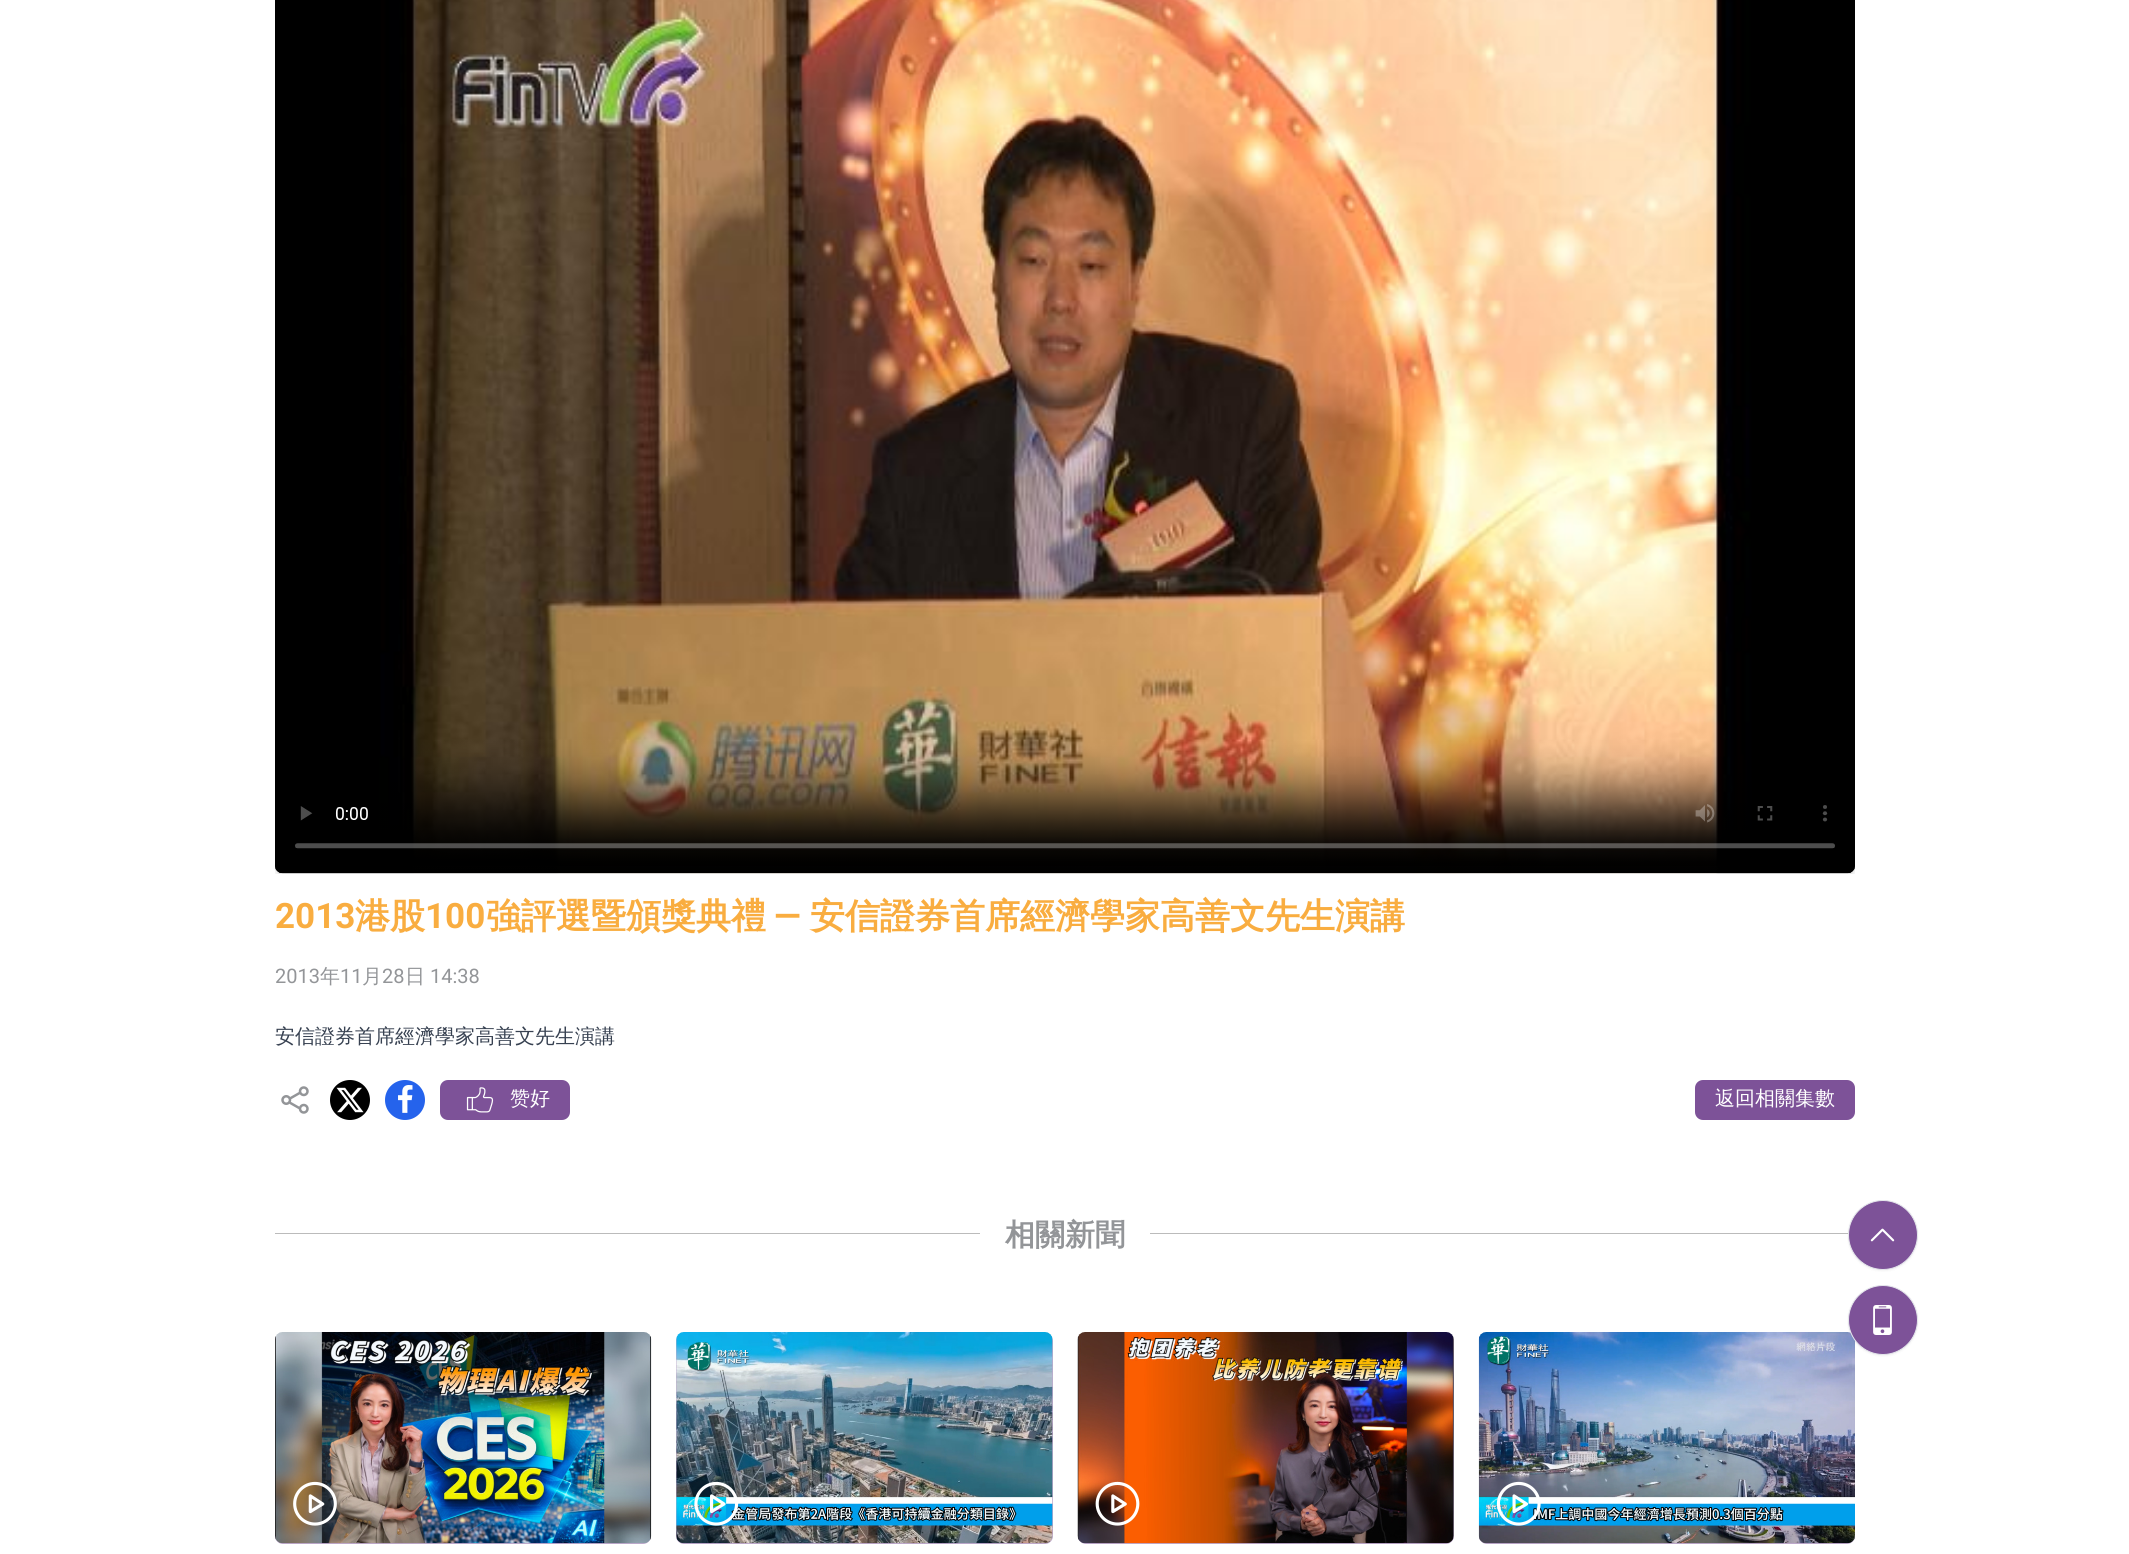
#include <cairo.h>
#include <math.h>
#include <stddef.h>


static void round_rect(cairo_t *cr, double x, double y, double w, double h, double r) {
    cairo_new_sub_path(cr);
    cairo_arc(cr, x + w - r, y + h - r, r, 0, M_PI / 2);
    cairo_arc(cr, x + r, y + h - r, r, M_PI / 2, M_PI);
    cairo_arc(cr, x + r, y + r, r, M_PI, 1.5 * M_PI);
    cairo_arc(cr, x + w - r, y + r, r, 1.5 * M_PI, 2 * M_PI);
    cairo_close_path(cr);
}

static void shadow(cairo_t *cr, double x, double y, double w, double h, double r, double blur, double alpha) {
    cairo_push_group_with_content(cr, CAIRO_CONTENT_ALPHA);
    cairo_set_operator(cr, CAIRO_OPERATOR_SOURCE);
    for (int i = 15; i >= -15 && fmin(w, h) + blur * i / 3 > 0; i -= 2) {
        double e = blur * i / 6;
        cairo_set_source_rgba(cr, 0, 0, 0, alpha * erfc((i - 1) / 8.5) / 2);
        round_rect(cr, x - e, y - e, w + 2 * e, h + 2 * e, fmax(0, fmin(r + e + blur * .6, fmin(w, h) / 2 + e)));
        cairo_fill(cr);
    }
    cairo_pattern_t *soft = cairo_pop_group(cr);
    cairo_mask(cr, soft);
    cairo_pattern_destroy(soft);
}

static void picture(cairo_t *cr, const char *path, double x, double y, double w, double h) {
    cairo_surface_t *image = cairo_image_surface_create_from_png(path);
    cairo_save(cr);
    cairo_set_source_surface(cr, image, x, y);
    cairo_rectangle(cr, x, y, w, h);
    cairo_fill(cr);
    cairo_restore(cr);
    cairo_surface_destroy(image);
}

int main(void) {
    cairo_surface_t *surface = cairo_image_surface_create(CAIRO_FORMAT_RGB24, 2129, 1554);
    cairo_t *cr = cairo_create(surface);
    cairo_font_options_t *options = cairo_font_options_create();
    cairo_font_options_set_hint_metrics(options, CAIRO_HINT_METRICS_OFF);
    cairo_font_options_set_hint_style(options, CAIRO_HINT_STYLE_NONE);
    cairo_set_font_options(cr, options);
    cairo_set_miter_limit(cr, 4);
    cairo_set_source_rgb(cr, 1, 1, 1);
    cairo_paint(cr);
    cairo_save(cr);
    cairo_rectangle(cr, 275, 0, 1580, 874);
    cairo_clip(cr);
    cairo_set_source_rgb(cr, 0, 0, 0);
    shadow(cr, 278, -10, 1575, 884, 5, 2.5, 0.1);
    shadow(cr, 276, -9, 1578, 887, 6, 4, 0.1);
    cairo_restore(cr);
    picture(cr, "img1.png", 275, 0, 1580, 874);
    cairo_select_font_face(cr, "Roboto", CAIRO_FONT_SLANT_NORMAL, CAIRO_FONT_WEIGHT_BOLD);
    cairo_set_font_size(cr, 35);
    cairo_set_source_rgb(cr, 0.973, 0.678, 0.251);
    cairo_move_to(cr, 275, 928);
    cairo_show_text(cr, "2013");
    cairo_select_font_face(cr, "WenQuanYi Zen Hei", CAIRO_FONT_SLANT_NORMAL, CAIRO_FONT_WEIGHT_BOLD);
    cairo_move_to(cr, 355, 928);
    cairo_show_text(cr, "港股");
    cairo_select_font_face(cr, "Roboto", CAIRO_FONT_SLANT_NORMAL, CAIRO_FONT_WEIGHT_BOLD);
    cairo_move_to(cr, 425, 928);
    cairo_show_text(cr, "100");
    cairo_select_font_face(cr, "WenQuanYi Zen Hei", CAIRO_FONT_SLANT_NORMAL, CAIRO_FONT_WEIGHT_BOLD);
    cairo_move_to(cr, 486, 928);
    cairo_show_text(cr, "強評選暨頒獎典禮");
    cairo_select_font_face(cr, "Roboto", CAIRO_FONT_SLANT_NORMAL, CAIRO_FONT_WEIGHT_BOLD);
    cairo_move_to(cr, 774, 928);
    cairo_show_text(cr, "—");
    cairo_select_font_face(cr, "WenQuanYi Zen Hei", CAIRO_FONT_SLANT_NORMAL, CAIRO_FONT_WEIGHT_BOLD);
    cairo_move_to(cr, 810, 928);
    cairo_show_text(cr, "安信證券首席經濟學家高善文先生演講");
    cairo_select_font_face(cr, "Roboto", CAIRO_FONT_SLANT_NORMAL, CAIRO_FONT_WEIGHT_NORMAL);
    cairo_set_font_size(cr, 20);
    cairo_set_source_rgb(cr, 0.576, 0.584, 0.596);
    cairo_move_to(cr, 275, 983);
    cairo_show_text(cr, "2013");
    cairo_select_font_face(cr, "WenQuanYi Zen Hei Medium", CAIRO_FONT_SLANT_NORMAL, CAIRO_FONT_WEIGHT_NORMAL);
    cairo_move_to(cr, 320, 983);
    cairo_show_text(cr, "年");
    cairo_select_font_face(cr, "Roboto", CAIRO_FONT_SLANT_NORMAL, CAIRO_FONT_WEIGHT_NORMAL);
    cairo_move_to(cr, 340, 983);
    cairo_show_text(cr, "11");
    cairo_select_font_face(cr, "WenQuanYi Zen Hei Medium", CAIRO_FONT_SLANT_NORMAL, CAIRO_FONT_WEIGHT_NORMAL);
    cairo_move_to(cr, 362, 983);
    cairo_show_text(cr, "月");
    cairo_select_font_face(cr, "Roboto", CAIRO_FONT_SLANT_NORMAL, CAIRO_FONT_WEIGHT_NORMAL);
    cairo_move_to(cr, 382, 983);
    cairo_show_text(cr, "28");
    cairo_select_font_face(cr, "WenQuanYi Zen Hei Medium", CAIRO_FONT_SLANT_NORMAL, CAIRO_FONT_WEIGHT_NORMAL);
    cairo_move_to(cr, 405, 983);
    cairo_show_text(cr, "日");
    cairo_select_font_face(cr, "Roboto", CAIRO_FONT_SLANT_NORMAL, CAIRO_FONT_WEIGHT_NORMAL);
    cairo_move_to(cr, 430, 983);
    cairo_show_text(cr, "14:38");
    cairo_select_font_face(cr, "WenQuanYi Zen Hei Medium", CAIRO_FONT_SLANT_NORMAL, CAIRO_FONT_WEIGHT_NORMAL);
    cairo_set_source_rgb(cr, 0.216, 0.255, 0.318);
    cairo_move_to(cr, 275, 1043);
    cairo_show_text(cr, "安信證券首席經濟學家高善文先生演講");
    picture(cr, "img2.png", 281, 1086, 28, 28);
    cairo_set_source_rgb(cr, 0, 0, 0);
    cairo_arc(cr, 350, 1100, 20, 0, 2 * M_PI);
    cairo_fill(cr);
    picture(cr, "img3.png", 336, 1087, 28, 26);
    cairo_set_source_rgb(cr, 0.145, 0.388, 0.922);
    cairo_arc(cr, 405, 1100, 20, 0, 2 * M_PI);
    cairo_fill(cr);
    picture(cr, "img4.png", 398, 1085, 15, 28);
    cairo_set_source_rgb(cr, 0.49, 0.322, 0.596);
    round_rect(cr, 440, 1080, 130, 40, 8);
    cairo_fill(cr);
    picture(cr, "img5.png", 466, 1087, 28, 26);
    cairo_set_source_rgb(cr, 1, 1, 1);
    cairo_move_to(cr, 510, 1105);
    cairo_show_text(cr, "赞好");
    cairo_set_source_rgb(cr, 0.49, 0.322, 0.596);
    round_rect(cr, 1695, 1080, 160, 40, 8);
    cairo_fill(cr);
    cairo_set_source_rgb(cr, 1, 1, 1);
    cairo_move_to(cr, 1715, 1105);
    cairo_show_text(cr, "返回相關集數");
    cairo_set_source_rgb(cr, 0.733, 0.733, 0.733);
    cairo_rectangle(cr, 275, 1233, 1580, 1);
    cairo_fill(cr);
    cairo_set_source_rgb(cr, 1, 1, 1);
    cairo_rectangle(cr, 980, 1233, 170, 1);
    cairo_fill(cr);
    cairo_select_font_face(cr, "WenQuanYi Zen Hei", CAIRO_FONT_SLANT_NORMAL, CAIRO_FONT_WEIGHT_BOLD);
    cairo_set_font_size(cr, 30);
    cairo_set_source_rgb(cr, 0.576, 0.584, 0.596);
    cairo_move_to(cr, 1005, 1245);
    cairo_show_text(cr, "相關新聞");
    cairo_set_source_rgb(cr, 0.745, 0.663, 0.8);
    round_rect(cr, 275, 1333, 376, 211, 8);
    cairo_fill(cr);
    picture(cr, "img6.png", 275, 1332, 377, 212);
    picture(cr, "img7.png", 293, 1481, 44, 45);
    round_rect(cr, 676, 1333, 377, 211, 8);
    cairo_fill(cr);
    picture(cr, "img8.png", 676, 1332, 377, 212);
    picture(cr, "img9.png", 694, 1481, 45, 45);
    round_rect(cr, 1078, 1333, 376, 211, 8);
    cairo_fill(cr);
    picture(cr, "img10.png", 1077, 1332, 377, 212);
    picture(cr, "img11.png", 1095, 1481, 45, 45);
    round_rect(cr, 1479, 1333, 376, 211, 8);
    cairo_fill(cr);
    picture(cr, "img12.png", 1478, 1332, 377, 212);
    picture(cr, "img13.png", 1496, 1481, 45, 45);
    cairo_set_source_rgb(cr, 0, 0, 0);
    shadow(cr, 1848, 1201, 70, 70, 35, 1, 0.05);
    cairo_set_source_rgb(cr, 0.49, 0.322, 0.596);
    cairo_arc(cr, 1883, 1235, 34.5, 0, 2 * M_PI);
    cairo_fill_preserve(cr);
    cairo_set_source_rgb(cr, 0.898, 0.906, 0.922);
    cairo_set_line_width(cr, 1);
    cairo_stroke(cr);
    picture(cr, "img14.png", 1870, 1228, 25, 14);
    cairo_set_source_rgb(cr, 0, 0, 0);
    shadow(cr, 1848, 1286, 70, 70, 35, 1, 0.05);
    cairo_set_source_rgb(cr, 0.49, 0.322, 0.596);
    cairo_arc(cr, 1883, 1320, 34.5, 0, 2 * M_PI);
    cairo_fill_preserve(cr);
    cairo_set_source_rgb(cr, 0.898, 0.906, 0.922);
    cairo_stroke(cr);
    picture(cr, "img15.png", 1873, 1305, 19, 30);
    cairo_surface_write_to_png(surface, "page.png");
    cairo_font_options_destroy(options);
    cairo_destroy(cr);
    cairo_surface_destroy(surface);
    return 0;
}
